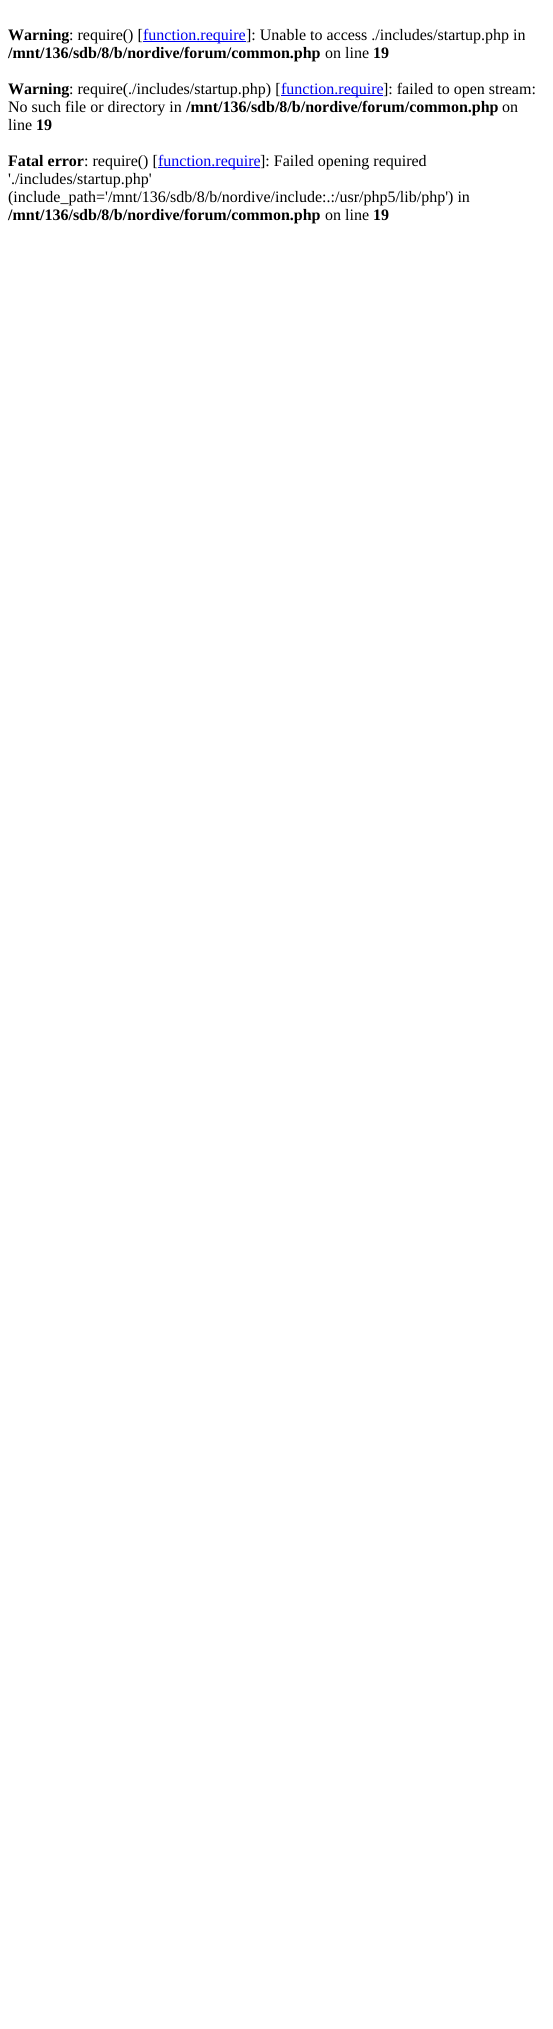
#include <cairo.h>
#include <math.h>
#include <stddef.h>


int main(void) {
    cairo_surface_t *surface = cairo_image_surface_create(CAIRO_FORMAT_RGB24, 553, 2029);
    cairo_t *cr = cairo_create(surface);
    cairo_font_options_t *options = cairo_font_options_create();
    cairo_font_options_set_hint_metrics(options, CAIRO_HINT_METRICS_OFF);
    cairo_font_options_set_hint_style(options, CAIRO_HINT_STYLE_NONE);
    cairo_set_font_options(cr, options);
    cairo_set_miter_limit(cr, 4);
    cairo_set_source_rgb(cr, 1, 1, 1);
    cairo_paint(cr);
    cairo_select_font_face(cr, "Liberation Serif", CAIRO_FONT_SLANT_NORMAL, CAIRO_FONT_WEIGHT_BOLD);
    cairo_set_font_size(cr, 16);
    cairo_set_source_rgb(cr, 0, 0, 0);
    cairo_move_to(cr, 8, 40);
    cairo_show_text(cr, "Warning");
    cairo_select_font_face(cr, "Liberation Serif", CAIRO_FONT_SLANT_NORMAL, CAIRO_FONT_WEIGHT_NORMAL);
    cairo_move_to(cr, 69, 40);
    cairo_show_text(cr, ": require() [");
    cairo_set_source_rgb(cr, 0, 0, 0.933);
    cairo_rectangle(cr, 143, 41, 103, 1);
    cairo_fill(cr);
    cairo_move_to(cr, 143, 40);
    cairo_show_text(cr, "function.require");
    cairo_set_source_rgb(cr, 0, 0, 0);
    cairo_move_to(cr, 246, 40);
    cairo_show_text(cr, "]: Unable to access ./includes/startup.php in");
    cairo_select_font_face(cr, "Liberation Serif", CAIRO_FONT_SLANT_NORMAL, CAIRO_FONT_WEIGHT_BOLD);
    cairo_move_to(cr, 8, 58);
    cairo_show_text(cr, "/mnt/136/sdb/8/b/nordive/forum/common.php");
    cairo_select_font_face(cr, "Liberation Serif", CAIRO_FONT_SLANT_NORMAL, CAIRO_FONT_WEIGHT_NORMAL);
    cairo_move_to(cr, 325, 58);
    cairo_show_text(cr, "on line");
    cairo_select_font_face(cr, "Liberation Serif", CAIRO_FONT_SLANT_NORMAL, CAIRO_FONT_WEIGHT_BOLD);
    cairo_move_to(cr, 373, 58);
    cairo_show_text(cr, "19");
    cairo_move_to(cr, 8, 94);
    cairo_show_text(cr, "Warning");
    cairo_select_font_face(cr, "Liberation Serif", CAIRO_FONT_SLANT_NORMAL, CAIRO_FONT_WEIGHT_NORMAL);
    cairo_move_to(cr, 69, 94);
    cairo_show_text(cr, ": require(./includes/startup.php) [");
    cairo_set_source_rgb(cr, 0, 0, 0.933);
    cairo_rectangle(cr, 281, 95, 102, 1);
    cairo_fill(cr);
    cairo_move_to(cr, 281, 94);
    cairo_show_text(cr, "function.require");
    cairo_set_source_rgb(cr, 0, 0, 0);
    cairo_move_to(cr, 383, 94);
    cairo_show_text(cr, "]: failed to open stream:");
    cairo_move_to(cr, 8, 112);
    cairo_show_text(cr, "No such file or directory in");
    cairo_select_font_face(cr, "Liberation Serif", CAIRO_FONT_SLANT_NORMAL, CAIRO_FONT_WEIGHT_BOLD);
    cairo_move_to(cr, 186, 112);
    cairo_show_text(cr, "/mnt/136/sdb/8/b/nordive/forum/common.php");
    cairo_select_font_face(cr, "Liberation Serif", CAIRO_FONT_SLANT_NORMAL, CAIRO_FONT_WEIGHT_NORMAL);
    cairo_move_to(cr, 502, 112);
    cairo_show_text(cr, "on");
    cairo_move_to(cr, 8, 130);
    cairo_show_text(cr, "line");
    cairo_select_font_face(cr, "Liberation Serif", CAIRO_FONT_SLANT_NORMAL, CAIRO_FONT_WEIGHT_BOLD);
    cairo_move_to(cr, 36, 130);
    cairo_show_text(cr, "19");
    cairo_move_to(cr, 8, 166);
    cairo_show_text(cr, "Fatal error");
    cairo_select_font_face(cr, "Liberation Serif", CAIRO_FONT_SLANT_NORMAL, CAIRO_FONT_WEIGHT_NORMAL);
    cairo_move_to(cr, 84, 166);
    cairo_show_text(cr, ": require() [");
    cairo_set_source_rgb(cr, 0, 0, 0.933);
    cairo_rectangle(cr, 158, 167, 102, 1);
    cairo_fill(cr);
    cairo_move_to(cr, 158, 166);
    cairo_show_text(cr, "function.require");
    cairo_set_source_rgb(cr, 0, 0, 0);
    cairo_move_to(cr, 260, 166);
    cairo_show_text(cr, "]: Failed opening required");
    cairo_move_to(cr, 8, 184);
    cairo_show_text(cr, "'./includes/startup.php'");
    cairo_move_to(cr, 8, 202);
    cairo_show_text(cr, "(include_path='/mnt/136/sdb/8/b/nordive/include:.:/usr/php5/lib/php') in");
    cairo_select_font_face(cr, "Liberation Serif", CAIRO_FONT_SLANT_NORMAL, CAIRO_FONT_WEIGHT_BOLD);
    cairo_move_to(cr, 8, 220);
    cairo_show_text(cr, "/mnt/136/sdb/8/b/nordive/forum/common.php");
    cairo_select_font_face(cr, "Liberation Serif", CAIRO_FONT_SLANT_NORMAL, CAIRO_FONT_WEIGHT_NORMAL);
    cairo_move_to(cr, 325, 220);
    cairo_show_text(cr, "on line");
    cairo_select_font_face(cr, "Liberation Serif", CAIRO_FONT_SLANT_NORMAL, CAIRO_FONT_WEIGHT_BOLD);
    cairo_move_to(cr, 373, 220);
    cairo_show_text(cr, "19");
    cairo_surface_write_to_png(surface, "page.png");
    cairo_font_options_destroy(options);
    cairo_destroy(cr);
    cairo_surface_destroy(surface);
    return 0;
}
